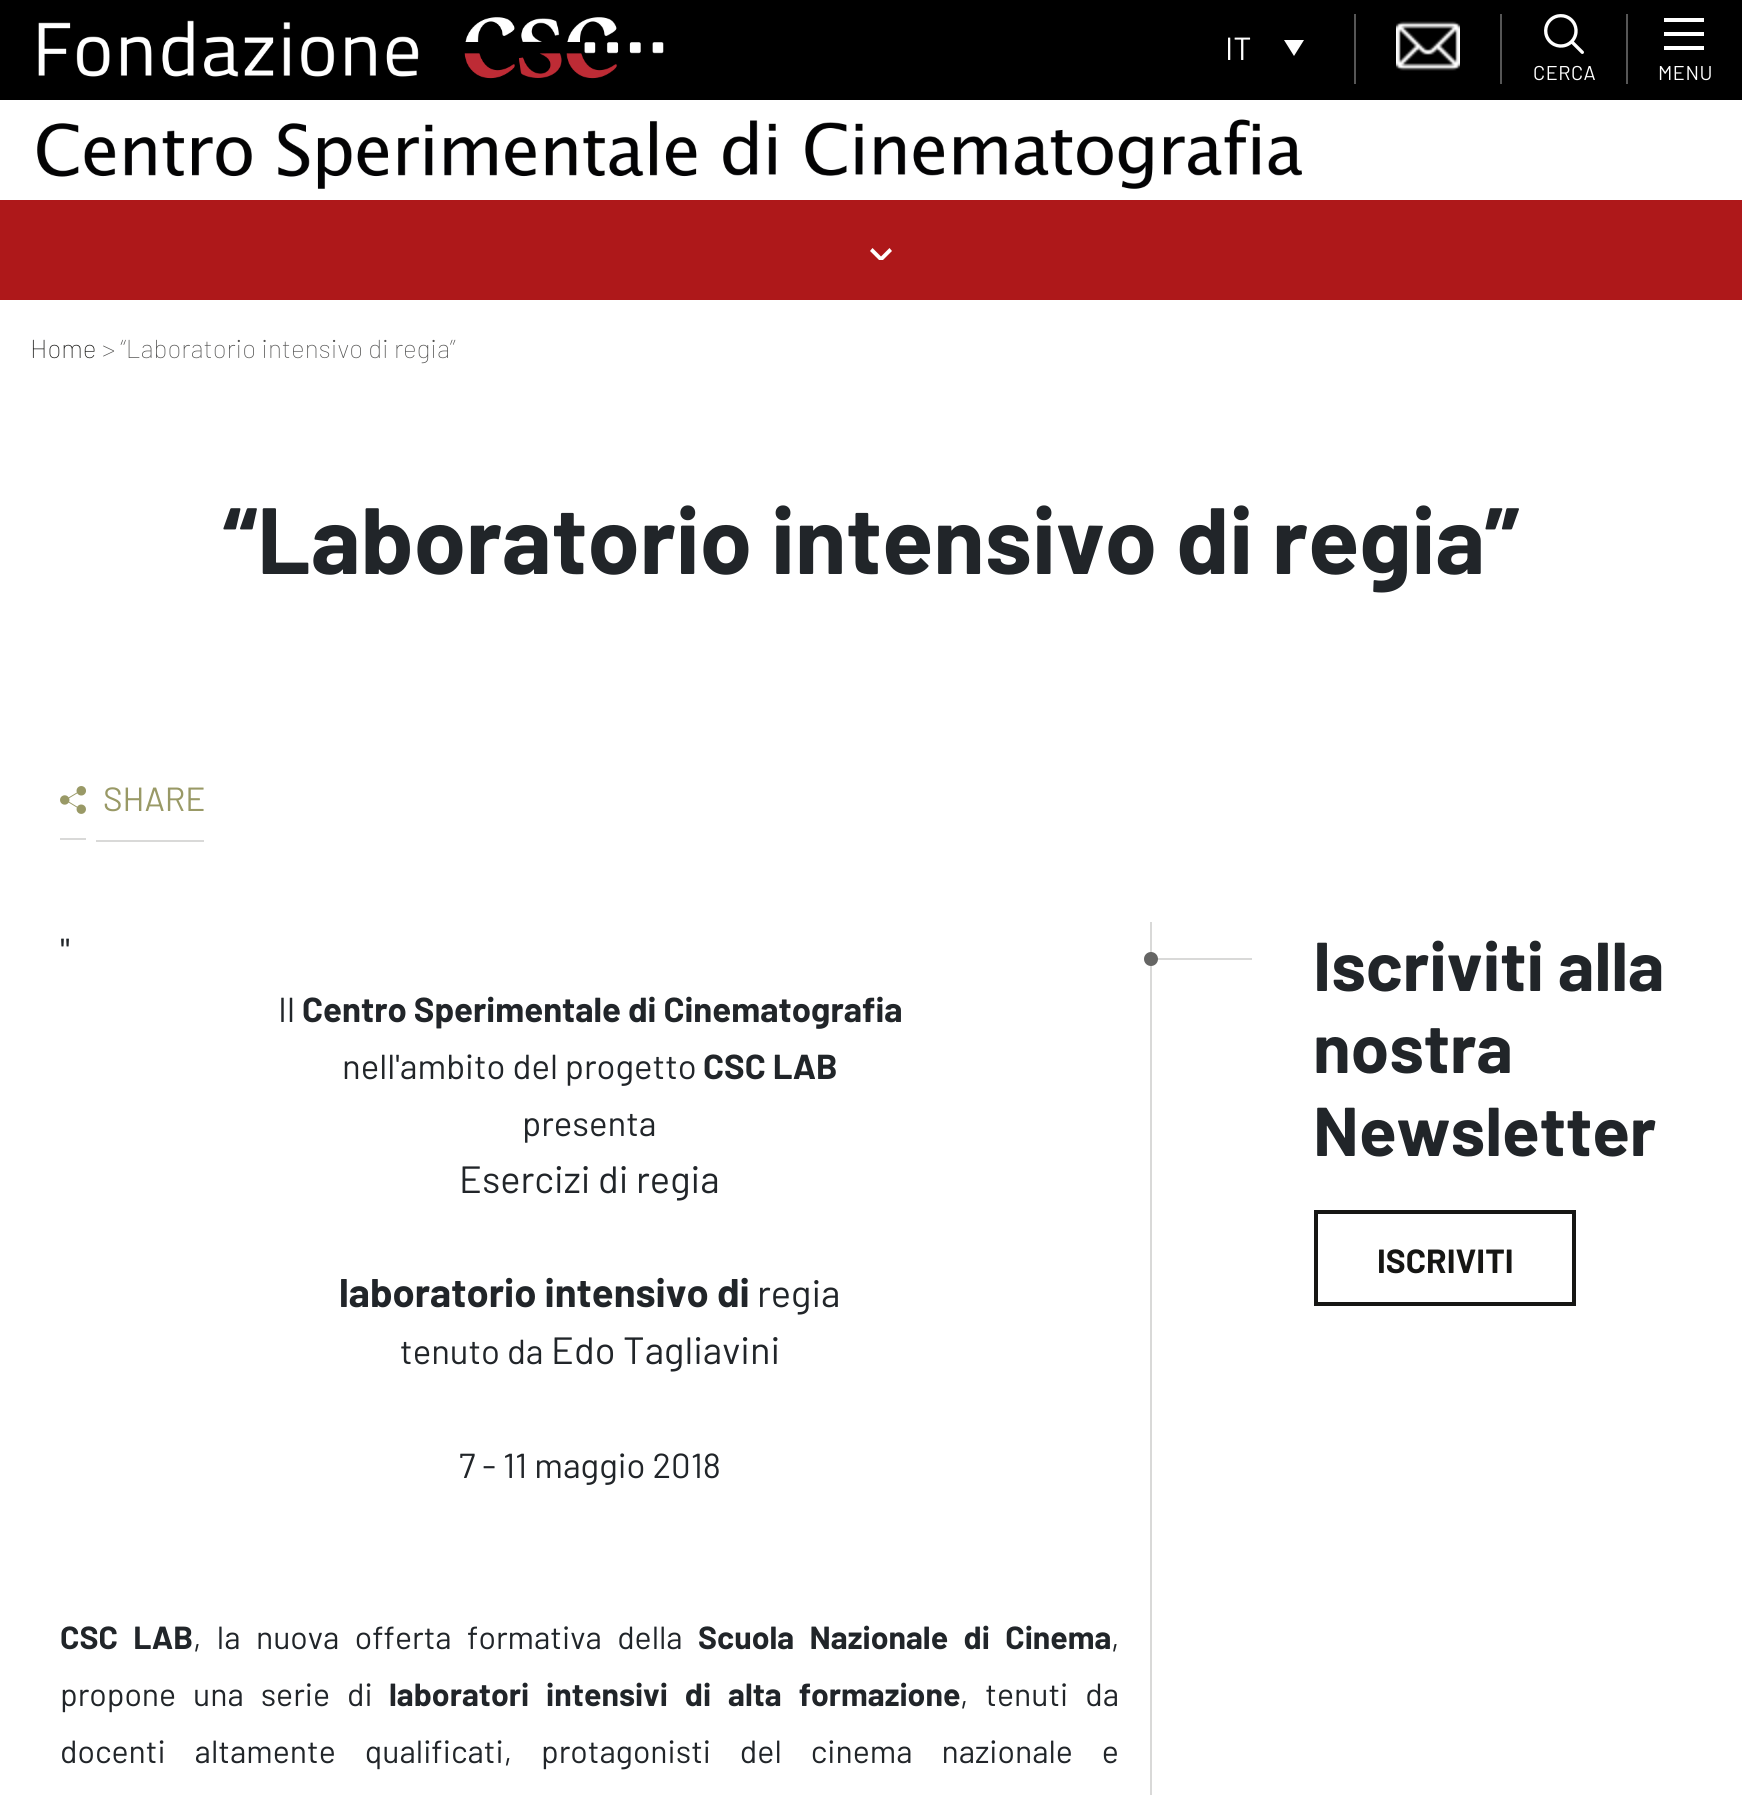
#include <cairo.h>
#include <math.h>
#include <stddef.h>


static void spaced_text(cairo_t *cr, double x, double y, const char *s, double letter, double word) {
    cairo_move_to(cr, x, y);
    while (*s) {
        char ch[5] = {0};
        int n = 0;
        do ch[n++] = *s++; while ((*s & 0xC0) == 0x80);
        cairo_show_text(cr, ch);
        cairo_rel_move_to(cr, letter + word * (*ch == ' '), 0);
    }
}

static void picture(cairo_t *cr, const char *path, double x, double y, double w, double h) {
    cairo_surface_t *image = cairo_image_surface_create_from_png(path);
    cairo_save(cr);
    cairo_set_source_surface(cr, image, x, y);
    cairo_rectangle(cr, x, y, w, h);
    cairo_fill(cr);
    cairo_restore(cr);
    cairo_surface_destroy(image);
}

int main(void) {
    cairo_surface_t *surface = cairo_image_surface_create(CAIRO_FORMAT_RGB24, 1742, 1795);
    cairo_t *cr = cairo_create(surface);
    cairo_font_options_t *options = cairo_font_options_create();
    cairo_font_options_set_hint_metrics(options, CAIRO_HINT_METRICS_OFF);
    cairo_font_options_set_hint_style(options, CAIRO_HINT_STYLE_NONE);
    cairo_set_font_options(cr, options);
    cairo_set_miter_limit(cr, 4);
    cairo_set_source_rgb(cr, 1, 1, 1);
    cairo_paint(cr);
    cairo_set_source_rgb(cr, 0, 0, 0);
    cairo_rectangle(cr, 0, 0, 1742, 100);
    cairo_fill(cr);
    picture(cr, "img1.png", 38, 17, 626, 62);
    cairo_select_font_face(cr, "Barlow", CAIRO_FONT_SLANT_NORMAL, CAIRO_FONT_WEIGHT_NORMAL);
    cairo_set_font_size(cr, 32);
    cairo_set_source_rgb(cr, 1, 1, 1);
    cairo_move_to(cr, 1225, 60);
    cairo_show_text(cr, "IT");
    cairo_new_path(cr);
    cairo_move_to(cr, 1284, 40);
    cairo_line_to(cr, 1304, 40);
    cairo_line_to(cr, 1294, 56);
    cairo_close_path(cr);
    cairo_fill(cr);
    cairo_set_source_rgb(cr, 0.337, 0.337, 0.337);
    cairo_rectangle(cr, 1354, 14, 2, 70);
    cairo_fill(cr);
    picture(cr, "img2.png", 1396, 21, 64, 50);
    cairo_rectangle(cr, 1500, 14, 2, 70);
    cairo_fill(cr);
    picture(cr, "img3.png", 1544, 14, 40, 40);
    cairo_set_font_size(cr, 20);
    cairo_set_source_rgb(cr, 1, 1, 1);
    spaced_text(cr, 1533, 80, "CERCA", 0.5, 0);
    cairo_set_source_rgb(cr, 0.337, 0.337, 0.337);
    cairo_rectangle(cr, 1626, 14, 2, 70);
    cairo_fill(cr);
    cairo_set_source_rgb(cr, 1, 1, 1);
    cairo_rectangle(cr, 1664, 18, 40, 4);
    cairo_fill(cr);
    cairo_rectangle(cr, 1664, 32, 40, 4);
    cairo_fill(cr);
    cairo_rectangle(cr, 1664, 46, 40, 4);
    cairo_fill(cr);
    spaced_text(cr, 1658, 80, "MENU", 0.5, 0);
    picture(cr, "img4.png", 37, 119, 1265, 70);
    cairo_set_source_rgb(cr, 0.682, 0.094, 0.102);
    cairo_rectangle(cr, 0, 200, 1742, 100);
    cairo_fill(cr);
    cairo_save(cr);
    cairo_rectangle(cr, 870, 248, 22, 12);
    cairo_clip(cr);
    cairo_set_source_rgb(cr, 1, 1, 1);
    cairo_new_path(cr);
    cairo_move_to(cr, 889.5, 248);
    cairo_line_to(cr, 881, 256.5);
    cairo_line_to(cr, 872.5, 248);
    cairo_line_to(cr, 870, 251);
    cairo_line_to(cr, 881, 262);
    cairo_line_to(cr, 892, 251);
    cairo_close_path(cr);
    cairo_fill(cr);
    cairo_restore(cr);
    cairo_select_font_face(cr, "Barlow Thin", CAIRO_FONT_SLANT_NORMAL, CAIRO_FONT_WEIGHT_NORMAL);
    cairo_set_font_size(cr, 26);
    cairo_set_source_rgb(cr, 0.086, 0.086, 0.082);
    cairo_move_to(cr, 30, 358);
    cairo_show_text(cr, "Home");
    cairo_set_source_rgb(cr, 0.329, 0.329, 0.325);
    cairo_move_to(cr, 102, 358);
    cairo_show_text(cr, "> “Laboratorio intensivo di regia”");
    cairo_select_font_face(cr, "Barlow", CAIRO_FONT_SLANT_NORMAL, CAIRO_FONT_WEIGHT_BOLD);
    cairo_set_font_size(cr, 94);
    cairo_set_source_rgb(cr, 0.129, 0.145, 0.161);
    cairo_move_to(cr, 223, 574);
    cairo_show_text(cr, "“Laboratorio intensivo di regia”");
    picture(cr, "img5.png", 60, 786, 26, 28);
    cairo_select_font_face(cr, "Barlow", CAIRO_FONT_SLANT_NORMAL, CAIRO_FONT_WEIGHT_NORMAL);
    cairo_set_font_size(cr, 33.5);
    cairo_set_source_rgb(cr, 0.6, 0.6, 0.4);
    cairo_move_to(cr, 103, 811);
    cairo_show_text(cr, "SHARE");
    cairo_set_source_rgb(cr, 0.851, 0.851, 0.847);
    cairo_rectangle(cr, 60, 838, 26, 2);
    cairo_fill(cr);
    cairo_rectangle(cr, 96, 840, 108, 2);
    cairo_fill(cr);
    cairo_rectangle(cr, 1150, 922, 2, 873);
    cairo_fill(cr);
    cairo_set_font_size(cr, 38);
    cairo_set_source_rgb(cr, 0.129, 0.145, 0.161);
    cairo_move_to(cr, 60, 965);
    cairo_show_text(cr, "\"");
    cairo_set_font_size(cr, 34.7);
    cairo_move_to(cr, 278, 1022);
    cairo_show_text(cr, "Il");
    cairo_select_font_face(cr, "Barlow", CAIRO_FONT_SLANT_NORMAL, CAIRO_FONT_WEIGHT_BOLD);
    cairo_move_to(cr, 302, 1022);
    cairo_show_text(cr, "Centro Sperimentale di Cinematografia");
    cairo_select_font_face(cr, "Barlow", CAIRO_FONT_SLANT_NORMAL, CAIRO_FONT_WEIGHT_NORMAL);
    cairo_move_to(cr, 342, 1079);
    cairo_show_text(cr, "nell'ambito del progetto");
    cairo_select_font_face(cr, "Barlow", CAIRO_FONT_SLANT_NORMAL, CAIRO_FONT_WEIGHT_BOLD);
    cairo_move_to(cr, 703, 1079);
    cairo_show_text(cr, "CSC LAB");
    cairo_select_font_face(cr, "Barlow", CAIRO_FONT_SLANT_NORMAL, CAIRO_FONT_WEIGHT_NORMAL);
    cairo_move_to(cr, 522, 1136);
    cairo_show_text(cr, "presenta");
    cairo_set_font_size(cr, 38);
    cairo_move_to(cr, 459, 1193);
    cairo_show_text(cr, "Esercizi di regia");
    cairo_select_font_face(cr, "Barlow", CAIRO_FONT_SLANT_NORMAL, CAIRO_FONT_WEIGHT_BOLD);
    cairo_set_font_size(cr, 40);
    cairo_move_to(cr, 339, 1307);
    cairo_show_text(cr, "laboratorio intensivo di");
    cairo_select_font_face(cr, "Barlow", CAIRO_FONT_SLANT_NORMAL, CAIRO_FONT_WEIGHT_NORMAL);
    cairo_set_font_size(cr, 38);
    cairo_move_to(cr, 757, 1307);
    cairo_show_text(cr, "regia");
    cairo_set_font_size(cr, 34.7);
    cairo_move_to(cr, 400, 1364);
    cairo_show_text(cr, "tenuto da");
    cairo_set_font_size(cr, 38);
    cairo_move_to(cr, 551, 1364);
    cairo_show_text(cr, "Edo Tagliavini");
    cairo_set_font_size(cr, 34.7);
    cairo_move_to(cr, 459, 1478);
    cairo_show_text(cr, "7 - 11 maggio 2018");
    cairo_select_font_face(cr, "Barlow", CAIRO_FONT_SLANT_NORMAL, CAIRO_FONT_WEIGHT_BOLD);
    cairo_set_font_size(cr, 32);
    spaced_text(cr, 60, 1649, "CSC LAB", 0, 9);
    cairo_select_font_face(cr, "Barlow", CAIRO_FONT_SLANT_NORMAL, CAIRO_FONT_WEIGHT_NORMAL);
    spaced_text(cr, 193, 1649, ", la nuova offerta formativa della", 0, 9);
    cairo_select_font_face(cr, "Barlow", CAIRO_FONT_SLANT_NORMAL, CAIRO_FONT_WEIGHT_BOLD);
    spaced_text(cr, 698, 1649, "Scuola Nazionale di Cinema", 0, 9);
    cairo_select_font_face(cr, "Barlow", CAIRO_FONT_SLANT_NORMAL, CAIRO_FONT_WEIGHT_NORMAL);
    cairo_move_to(cr, 1111, 1649);
    cairo_show_text(cr, ",");
    spaced_text(cr, 60, 1706, "propone una serie di", 0, 10.5);
    cairo_select_font_face(cr, "Barlow", CAIRO_FONT_SLANT_NORMAL, CAIRO_FONT_WEIGHT_BOLD);
    spaced_text(cr, 389, 1706, "laboratori intensivi di alta formazione", 0, 10.5);
    cairo_select_font_face(cr, "Barlow", CAIRO_FONT_SLANT_NORMAL, CAIRO_FONT_WEIGHT_NORMAL);
    spaced_text(cr, 960, 1706, ", tenuti da", 0, 10.5);
    spaced_text(cr, 60, 1763, "docenti altamente qualificati, protagonisti del cinema nazionale e", 0, 22.5);
    cairo_set_source_rgb(cr, 0.851, 0.851, 0.847);
    cairo_rectangle(cr, 1152, 958, 100, 2);
    cairo_fill(cr);
    cairo_set_source_rgb(cr, 0.396, 0.396, 0.392);
    cairo_arc(cr, 1151, 959, 7, 0, 2 * M_PI);
    cairo_fill(cr);
    cairo_select_font_face(cr, "Barlow", CAIRO_FONT_SLANT_NORMAL, CAIRO_FONT_WEIGHT_BOLD);
    cairo_set_font_size(cr, 69);
    cairo_set_source_rgb(cr, 0.129, 0.145, 0.161);
    cairo_move_to(cr, 1313, 991);
    cairo_show_text(cr, "Iscriviti alla");
    cairo_move_to(cr, 1313, 1073);
    cairo_show_text(cr, "nostra");
    cairo_move_to(cr, 1313, 1156);
    cairo_show_text(cr, "Newsletter");
    cairo_rectangle(cr, 1316, 1212, 258, 92);
    cairo_set_source_rgb(cr, 0.086, 0.086, 0.082);
    cairo_set_line_width(cr, 4);
    cairo_stroke(cr);
    cairo_set_font_size(cr, 33.5);
    cairo_move_to(cr, 1377, 1273);
    cairo_show_text(cr, "ISCRIVITI");
    cairo_surface_write_to_png(surface, "page.png");
    cairo_font_options_destroy(options);
    cairo_destroy(cr);
    cairo_surface_destroy(surface);
    return 0;
}
